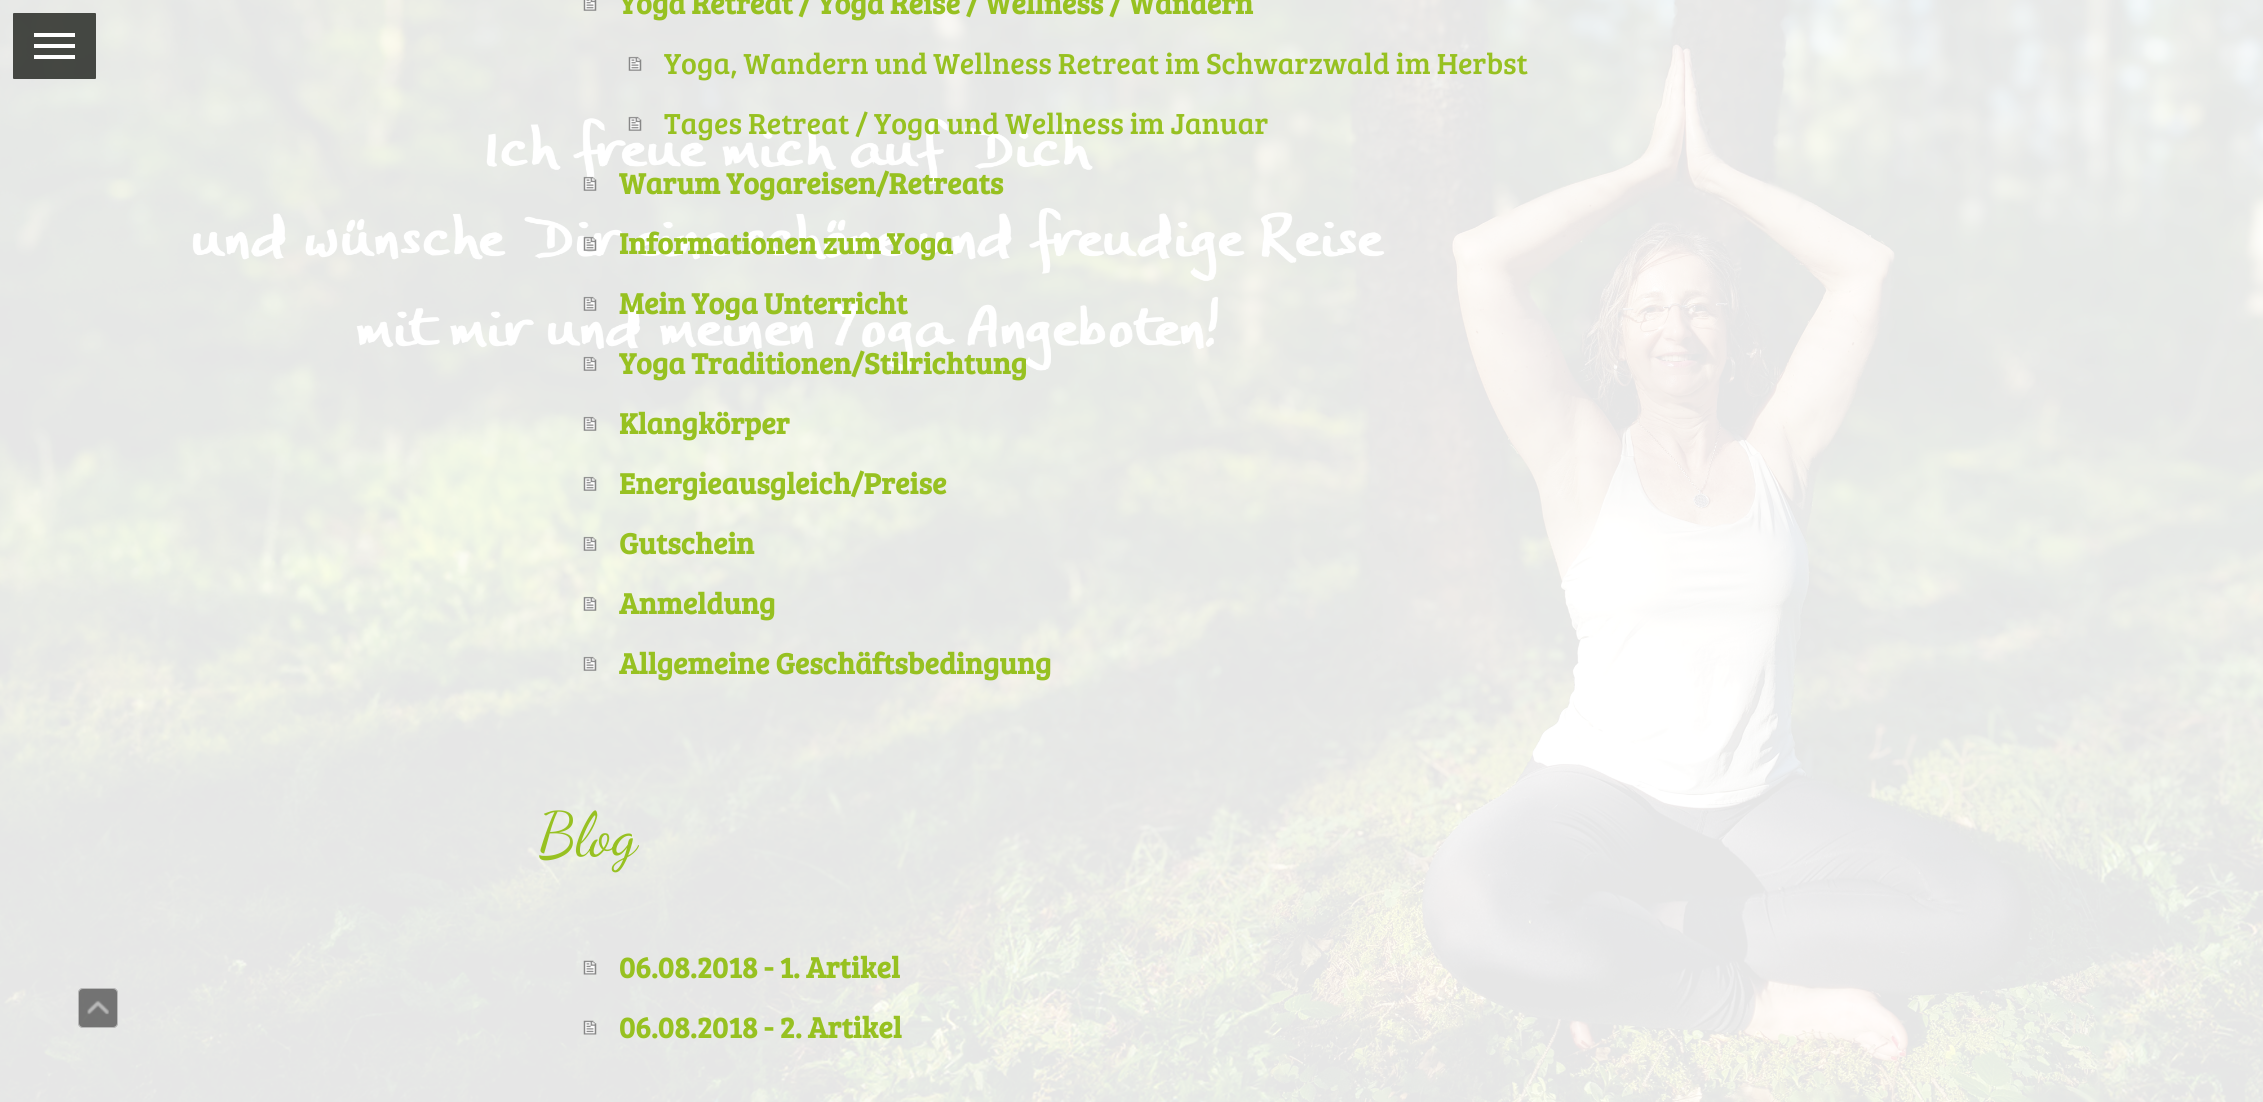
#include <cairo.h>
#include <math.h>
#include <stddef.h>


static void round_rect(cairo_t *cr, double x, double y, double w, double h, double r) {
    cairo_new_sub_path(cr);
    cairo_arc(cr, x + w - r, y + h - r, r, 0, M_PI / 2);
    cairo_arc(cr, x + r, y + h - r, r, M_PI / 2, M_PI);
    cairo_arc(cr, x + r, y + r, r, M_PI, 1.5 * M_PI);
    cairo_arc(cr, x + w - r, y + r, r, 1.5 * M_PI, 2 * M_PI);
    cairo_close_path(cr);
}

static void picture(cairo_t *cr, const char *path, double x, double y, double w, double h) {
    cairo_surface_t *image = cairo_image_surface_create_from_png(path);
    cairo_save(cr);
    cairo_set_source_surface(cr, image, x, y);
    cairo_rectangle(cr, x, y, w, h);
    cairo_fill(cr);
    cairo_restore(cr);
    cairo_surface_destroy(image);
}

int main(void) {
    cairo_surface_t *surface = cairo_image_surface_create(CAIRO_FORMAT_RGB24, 2263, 1102);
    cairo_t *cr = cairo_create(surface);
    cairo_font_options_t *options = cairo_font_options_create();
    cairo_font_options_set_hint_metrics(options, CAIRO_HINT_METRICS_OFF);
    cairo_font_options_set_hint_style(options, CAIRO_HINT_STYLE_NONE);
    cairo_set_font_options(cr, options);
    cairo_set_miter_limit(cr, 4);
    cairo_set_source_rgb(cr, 1, 1, 1);
    cairo_paint(cr);
    picture(cr, "img2.png", 0, 0, 2263, 1102);
    cairo_set_source_rgba(cr, 0, 0, 0, 0.5);
    round_rect(cr, 78, 988, 40, 40, 5);
    cairo_fill(cr);
    round_rect(cr, 78.5, 988.5, 39, 39, 4.5);
    cairo_set_source_rgba(cr, 1, 1, 1, 0.5);
    cairo_set_line_width(cr, 1);
    cairo_stroke(cr);
    picture(cr, "img1.png", 87, 1000, 22, 15);
    cairo_set_source_rgba(cr, 0.11, 0.122, 0.098, 0.8);
    round_rect(cr, 13, 13, 83, 66, 1);
    cairo_fill(cr);
    cairo_set_source_rgb(cr, 1, 1, 1);
    cairo_rectangle(cr, 34, 44, 41, 4);
    cairo_fill(cr);
    cairo_rectangle(cr, 34, 33, 41, 4);
    cairo_fill(cr);
    cairo_rectangle(cr, 34, 55, 41, 4);
    cairo_fill(cr);
    picture(cr, "img3.png", 583, 0, 14, 11);
    cairo_select_font_face(cr, "Bree Serif", CAIRO_FONT_SLANT_NORMAL, CAIRO_FONT_WEIGHT_BOLD);
    cairo_set_font_size(cr, 30);
    cairo_set_source_rgb(cr, 0.592, 0.757, 0.129);
    cairo_move_to(cr, 619, 14);
    cairo_show_text(cr, "Yoga Retreat / Yoga Reise / Wellness / Wandern");
    picture(cr, "img4.png", 628, 56, 14, 15);
    cairo_select_font_face(cr, "Bree Serif", CAIRO_FONT_SLANT_NORMAL, CAIRO_FONT_WEIGHT_NORMAL);
    cairo_move_to(cr, 664, 74);
    cairo_show_text(cr, "Yoga, Wandern und Wellness Retreat im Schwarzwald im Herbst");
    picture(cr, "img5.png", 628, 116, 14, 15);
    cairo_move_to(cr, 664, 134);
    cairo_show_text(cr, "Tages Retreat / Yoga und Wellness im Januar");
    picture(cr, "img6.png", 583, 176, 14, 15);
    cairo_select_font_face(cr, "Bree Serif", CAIRO_FONT_SLANT_NORMAL, CAIRO_FONT_WEIGHT_BOLD);
    cairo_move_to(cr, 619, 194);
    cairo_show_text(cr, "Warum Yogareisen/Retreats");
    picture(cr, "img7.png", 583, 236, 14, 15);
    cairo_move_to(cr, 619, 254);
    cairo_show_text(cr, "Informationen zum Yoga");
    picture(cr, "img8.png", 583, 296, 14, 15);
    cairo_move_to(cr, 619, 314);
    cairo_show_text(cr, "Mein Yoga Unterricht");
    picture(cr, "img9.png", 583, 356, 14, 15);
    cairo_move_to(cr, 619, 374);
    cairo_show_text(cr, "Yoga Traditionen/Stilrichtung");
    picture(cr, "img10.png", 583, 416, 14, 15);
    cairo_move_to(cr, 619, 434);
    cairo_show_text(cr, "Klangkörper");
    picture(cr, "img11.png", 583, 476, 14, 15);
    cairo_move_to(cr, 619, 494);
    cairo_show_text(cr, "Energieausgleich/Preise");
    picture(cr, "img12.png", 583, 536, 14, 15);
    cairo_move_to(cr, 619, 554);
    cairo_show_text(cr, "Gutschein");
    picture(cr, "img13.png", 583, 596, 14, 15);
    cairo_move_to(cr, 619, 614);
    cairo_show_text(cr, "Anmeldung");
    picture(cr, "img14.png", 583, 656, 14, 15);
    cairo_move_to(cr, 619, 674);
    cairo_show_text(cr, "Allgemeine Geschäftsbedingung");
    cairo_select_font_face(cr, "Dancing Script", CAIRO_FONT_SLANT_NORMAL, CAIRO_FONT_WEIGHT_NORMAL);
    cairo_set_font_size(cr, 62);
    cairo_move_to(cr, 538, 855);
    cairo_show_text(cr, "Blog");
    picture(cr, "img15.png", 583, 960, 14, 15);
    cairo_select_font_face(cr, "Bree Serif", CAIRO_FONT_SLANT_NORMAL, CAIRO_FONT_WEIGHT_BOLD);
    cairo_set_font_size(cr, 30);
    cairo_move_to(cr, 619, 978);
    cairo_show_text(cr, "06.08.2018 - 1. Artikel");
    picture(cr, "img16.png", 583, 1020, 14, 15);
    cairo_move_to(cr, 619, 1038);
    cairo_show_text(cr, "06.08.2018 - 2. Artikel");
    cairo_surface_write_to_png(surface, "page.png");
    cairo_font_options_destroy(options);
    cairo_destroy(cr);
    cairo_surface_destroy(surface);
    return 0;
}
